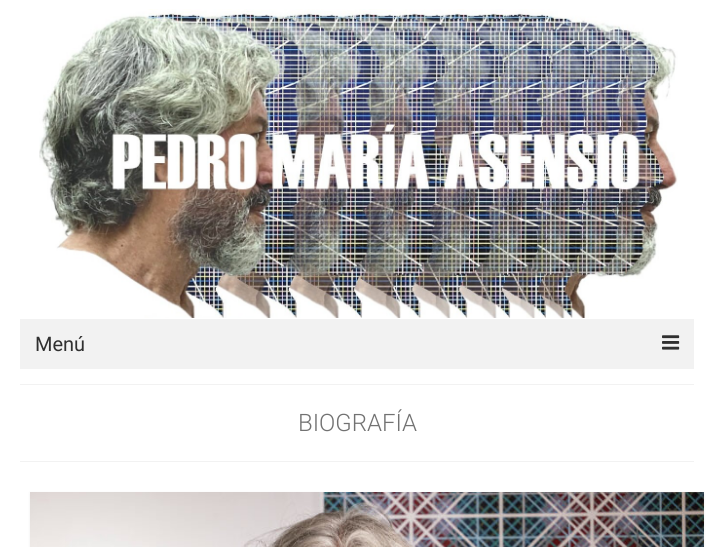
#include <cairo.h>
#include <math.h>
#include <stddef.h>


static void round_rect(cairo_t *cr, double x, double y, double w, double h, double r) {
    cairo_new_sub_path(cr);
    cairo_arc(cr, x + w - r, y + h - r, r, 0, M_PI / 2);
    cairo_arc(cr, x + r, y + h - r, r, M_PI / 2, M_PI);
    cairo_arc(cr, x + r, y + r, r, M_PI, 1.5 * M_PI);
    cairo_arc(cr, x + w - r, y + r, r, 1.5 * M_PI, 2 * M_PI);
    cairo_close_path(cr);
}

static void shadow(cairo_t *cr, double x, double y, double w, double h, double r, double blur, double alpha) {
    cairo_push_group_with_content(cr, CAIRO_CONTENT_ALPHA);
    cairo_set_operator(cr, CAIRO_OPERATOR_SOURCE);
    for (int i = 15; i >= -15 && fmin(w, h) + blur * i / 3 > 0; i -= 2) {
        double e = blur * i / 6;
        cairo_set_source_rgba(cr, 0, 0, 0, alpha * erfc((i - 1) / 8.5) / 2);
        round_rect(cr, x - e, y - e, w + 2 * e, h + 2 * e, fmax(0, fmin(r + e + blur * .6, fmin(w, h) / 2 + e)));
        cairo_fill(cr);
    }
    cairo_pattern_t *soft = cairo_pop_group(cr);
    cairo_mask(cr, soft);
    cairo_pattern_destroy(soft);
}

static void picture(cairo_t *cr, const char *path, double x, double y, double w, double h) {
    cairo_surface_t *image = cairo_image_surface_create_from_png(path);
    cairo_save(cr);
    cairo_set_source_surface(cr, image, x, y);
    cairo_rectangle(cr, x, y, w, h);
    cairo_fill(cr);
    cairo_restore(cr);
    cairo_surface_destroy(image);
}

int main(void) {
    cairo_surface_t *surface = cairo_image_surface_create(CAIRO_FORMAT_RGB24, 714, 547);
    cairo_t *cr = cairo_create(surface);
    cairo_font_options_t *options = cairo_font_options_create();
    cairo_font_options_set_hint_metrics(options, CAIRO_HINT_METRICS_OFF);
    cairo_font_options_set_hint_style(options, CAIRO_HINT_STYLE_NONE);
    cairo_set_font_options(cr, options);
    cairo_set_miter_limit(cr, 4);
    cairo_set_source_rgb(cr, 1, 1, 1);
    cairo_paint(cr);
    picture(cr, "img1.png", 39, 9, 639, 309);
    cairo_set_source_rgb(cr, 0.949, 0.949, 0.949);
    cairo_rectangle(cr, 20, 319, 674, 50);
    cairo_fill(cr);
    cairo_select_font_face(cr, "Roboto", CAIRO_FONT_SLANT_NORMAL, CAIRO_FONT_WEIGHT_NORMAL);
    cairo_set_font_size(cr, 20);
    cairo_set_source_rgb(cr, 0.188, 0.188, 0.188);
    cairo_move_to(cr, 35, 351);
    cairo_show_text(cr, "Menú");
    picture(cr, "img2.png", 662, 335, 18, 15);
    cairo_set_source_rgb(cr, 0.949, 0.949, 0.949);
    cairo_rectangle(cr, 20, 384, 674, 1);
    cairo_fill(cr);
    cairo_rectangle(cr, 20, 461, 674, 1);
    cairo_fill(cr);
    cairo_select_font_face(cr, "Roboto Light", CAIRO_FONT_SLANT_NORMAL, CAIRO_FONT_WEIGHT_NORMAL);
    cairo_set_font_size(cr, 24);
    cairo_set_source_rgb(cr, 0.447, 0.447, 0.447);
    cairo_move_to(cr, 298, 431);
    cairo_show_text(cr, "BIOGRAFÍA");
    cairo_set_source_rgb(cr, 0, 0, 0);
    shadow(cr, 30, 493, 674, 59, 0, 1.5, 0.06);
    picture(cr, "img3.png", 30, 492, 674, 55);
    cairo_surface_write_to_png(surface, "page.png");
    cairo_font_options_destroy(options);
    cairo_destroy(cr);
    cairo_surface_destroy(surface);
    return 0;
}
